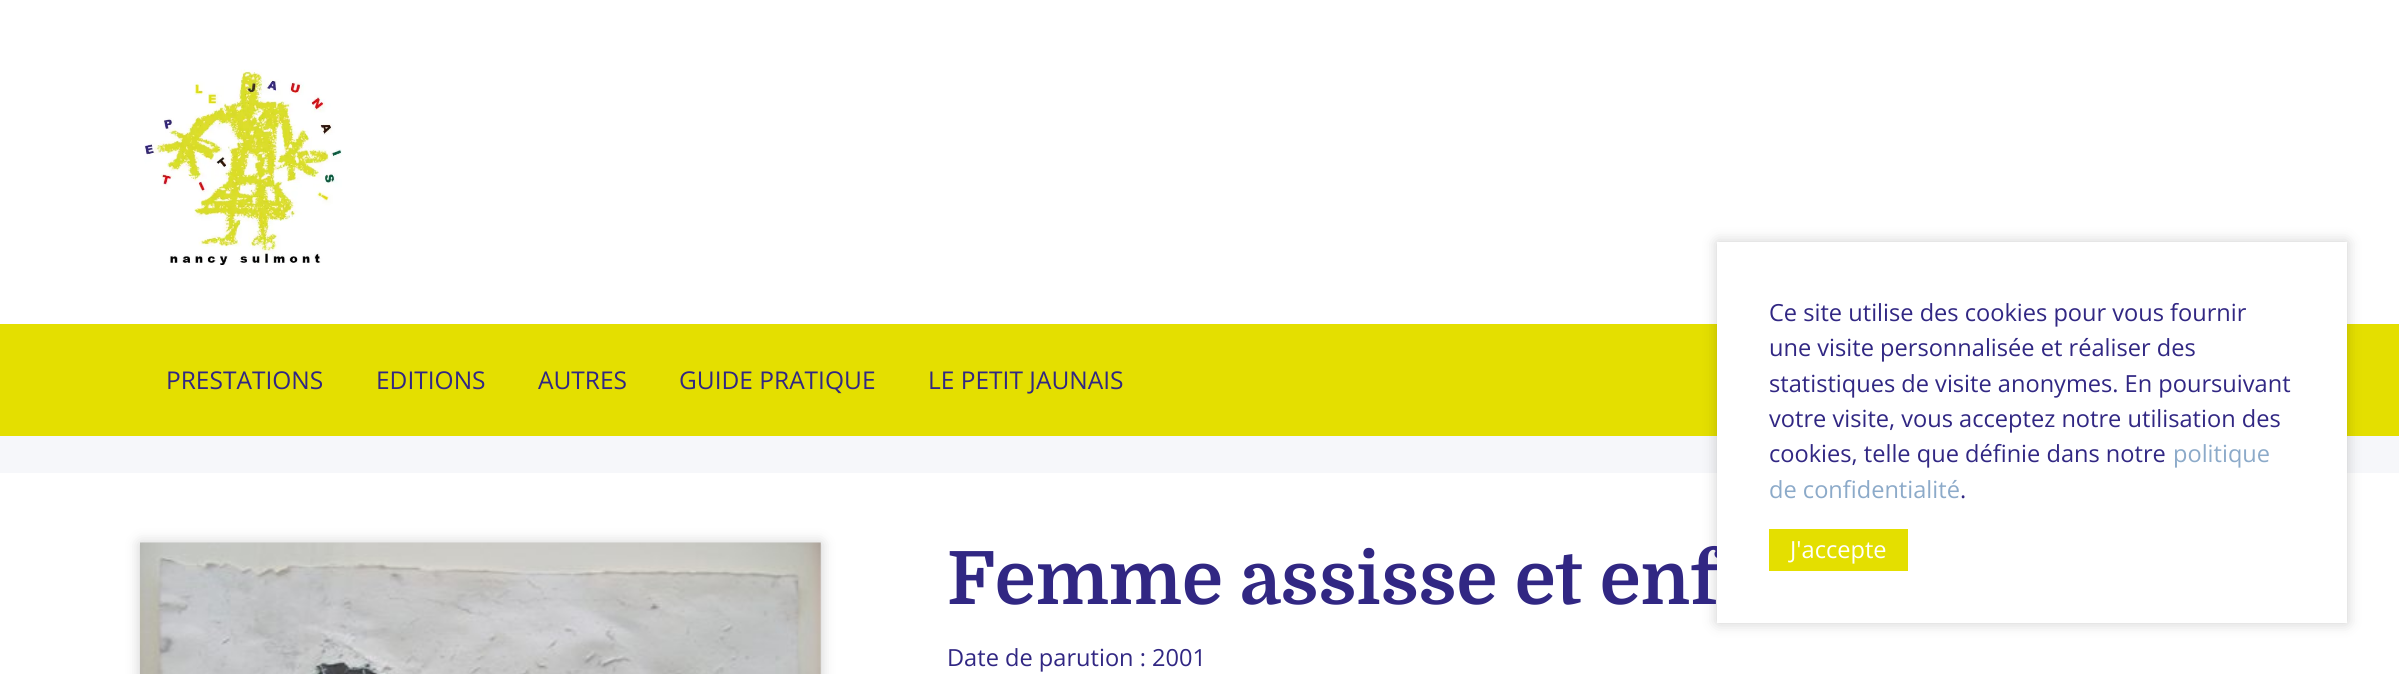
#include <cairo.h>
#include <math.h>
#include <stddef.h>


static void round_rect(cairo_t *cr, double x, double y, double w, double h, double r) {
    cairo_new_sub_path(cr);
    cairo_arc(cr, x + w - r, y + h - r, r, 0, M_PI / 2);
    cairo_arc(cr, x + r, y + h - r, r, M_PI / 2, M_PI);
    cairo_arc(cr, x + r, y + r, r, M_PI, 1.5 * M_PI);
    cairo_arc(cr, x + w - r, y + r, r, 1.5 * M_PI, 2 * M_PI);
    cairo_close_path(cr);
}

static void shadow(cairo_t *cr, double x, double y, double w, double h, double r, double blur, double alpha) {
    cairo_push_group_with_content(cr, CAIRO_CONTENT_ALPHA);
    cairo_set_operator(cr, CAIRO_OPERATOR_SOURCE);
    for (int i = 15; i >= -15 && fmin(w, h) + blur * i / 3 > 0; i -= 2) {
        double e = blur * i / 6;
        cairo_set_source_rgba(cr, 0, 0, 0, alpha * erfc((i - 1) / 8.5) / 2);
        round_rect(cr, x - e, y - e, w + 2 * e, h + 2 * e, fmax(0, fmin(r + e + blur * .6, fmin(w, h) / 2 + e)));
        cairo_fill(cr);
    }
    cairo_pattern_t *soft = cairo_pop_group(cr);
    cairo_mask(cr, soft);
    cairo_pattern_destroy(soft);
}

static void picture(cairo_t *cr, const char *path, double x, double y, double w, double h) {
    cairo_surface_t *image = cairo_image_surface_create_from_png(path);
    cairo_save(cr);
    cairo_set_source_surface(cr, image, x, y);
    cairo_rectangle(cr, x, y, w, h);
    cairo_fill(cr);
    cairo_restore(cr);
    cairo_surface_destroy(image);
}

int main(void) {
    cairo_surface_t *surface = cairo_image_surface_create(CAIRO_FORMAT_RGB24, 2399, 674);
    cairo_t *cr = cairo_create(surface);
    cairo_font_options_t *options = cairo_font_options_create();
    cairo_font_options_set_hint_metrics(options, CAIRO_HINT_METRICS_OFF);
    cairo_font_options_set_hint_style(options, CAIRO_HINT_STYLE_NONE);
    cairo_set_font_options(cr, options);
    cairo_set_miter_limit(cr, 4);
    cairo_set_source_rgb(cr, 1, 1, 1);
    cairo_paint(cr);
    picture(cr, "img1.png", 144, 69, 198, 196);
    cairo_set_source_rgb(cr, 0.894, 0.875, 0);
    cairo_rectangle(cr, 0, 324, 2399, 112);
    cairo_fill(cr);
    cairo_select_font_face(cr, "Open Sans", CAIRO_FONT_SLANT_NORMAL, CAIRO_FONT_WEIGHT_NORMAL);
    cairo_set_font_size(cr, 24.5);
    cairo_set_source_rgb(cr, 0.192, 0.153, 0.514);
    cairo_move_to(cr, 166, 389);
    cairo_show_text(cr, "PRESTATIONS");
    cairo_move_to(cr, 376, 389);
    cairo_show_text(cr, "EDITIONS");
    cairo_move_to(cr, 538, 389);
    cairo_show_text(cr, "AUTRES");
    cairo_move_to(cr, 679, 389);
    cairo_show_text(cr, "GUIDE PRATIQUE");
    cairo_move_to(cr, 928, 389);
    cairo_show_text(cr, "LE PETIT JAUNAIS");
    cairo_set_source_rgb(cr, 0.961, 0.965, 0.98);
    cairo_rectangle(cr, 0, 436, 2399, 37);
    cairo_fill(cr);
    cairo_set_source_rgb(cr, 0, 0, 0);
    shadow(cr, 1717, 242, 630, 381, 0, 7, 0.2);
    cairo_select_font_face(cr, "Domine", CAIRO_FONT_SLANT_NORMAL, CAIRO_FONT_WEIGHT_BOLD);
    cairo_set_font_size(cr, 73.5);
    cairo_set_source_rgb(cr, 0.192, 0.153, 0.514);
    cairo_move_to(cr, 947, 604);
    cairo_show_text(cr, "Femme assisse et enf");
    cairo_set_source_rgb(cr, 1, 1, 1);
    cairo_rectangle(cr, 1717, 242, 630, 381);
    cairo_fill(cr);
    cairo_select_font_face(cr, "Open Sans", CAIRO_FONT_SLANT_NORMAL, CAIRO_FONT_WEIGHT_NORMAL);
    cairo_set_font_size(cr, 23.6);
    cairo_set_source_rgb(cr, 0.192, 0.153, 0.514);
    cairo_move_to(cr, 1769, 321);
    cairo_show_text(cr, "Ce site utilise des cookies pour vous fournir");
    cairo_move_to(cr, 1769, 356);
    cairo_show_text(cr, "une visite personnalisée et réaliser des");
    cairo_move_to(cr, 1769, 392);
    cairo_show_text(cr, "statistiques de visite anonymes. En poursuivant");
    cairo_move_to(cr, 1769, 427);
    cairo_show_text(cr, "votre visite, vous acceptez notre utilisation des");
    cairo_move_to(cr, 1769, 462);
    cairo_show_text(cr, "cookies, telle que définie dans notre");
    cairo_set_source_rgb(cr, 0.549, 0.667, 0.788);
    cairo_move_to(cr, 2173, 462);
    cairo_show_text(cr, "politique");
    cairo_move_to(cr, 1769, 498);
    cairo_show_text(cr, "de confidentialité");
    cairo_set_source_rgb(cr, 0.192, 0.153, 0.514);
    cairo_move_to(cr, 1960, 498);
    cairo_show_text(cr, ".");
    cairo_set_source_rgb(cr, 0.894, 0.875, 0);
    cairo_rectangle(cr, 1769, 529, 139, 42);
    cairo_fill(cr);
    cairo_set_source_rgb(cr, 1, 1, 1);
    cairo_move_to(cr, 1790, 558);
    cairo_show_text(cr, "J'accepte");
    cairo_set_source_rgb(cr, 0, 0, 0);
    shadow(cr, 140, 543, 681, 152, 0, 7, 0.2);
    picture(cr, "img2.png", 140, 542, 681, 132);
    cairo_set_source_rgb(cr, 0.192, 0.153, 0.514);
    cairo_move_to(cr, 947, 666);
    cairo_show_text(cr, "Date de parution : 2001");
    cairo_surface_write_to_png(surface, "page.png");
    cairo_font_options_destroy(options);
    cairo_destroy(cr);
    cairo_surface_destroy(surface);
    return 0;
}
